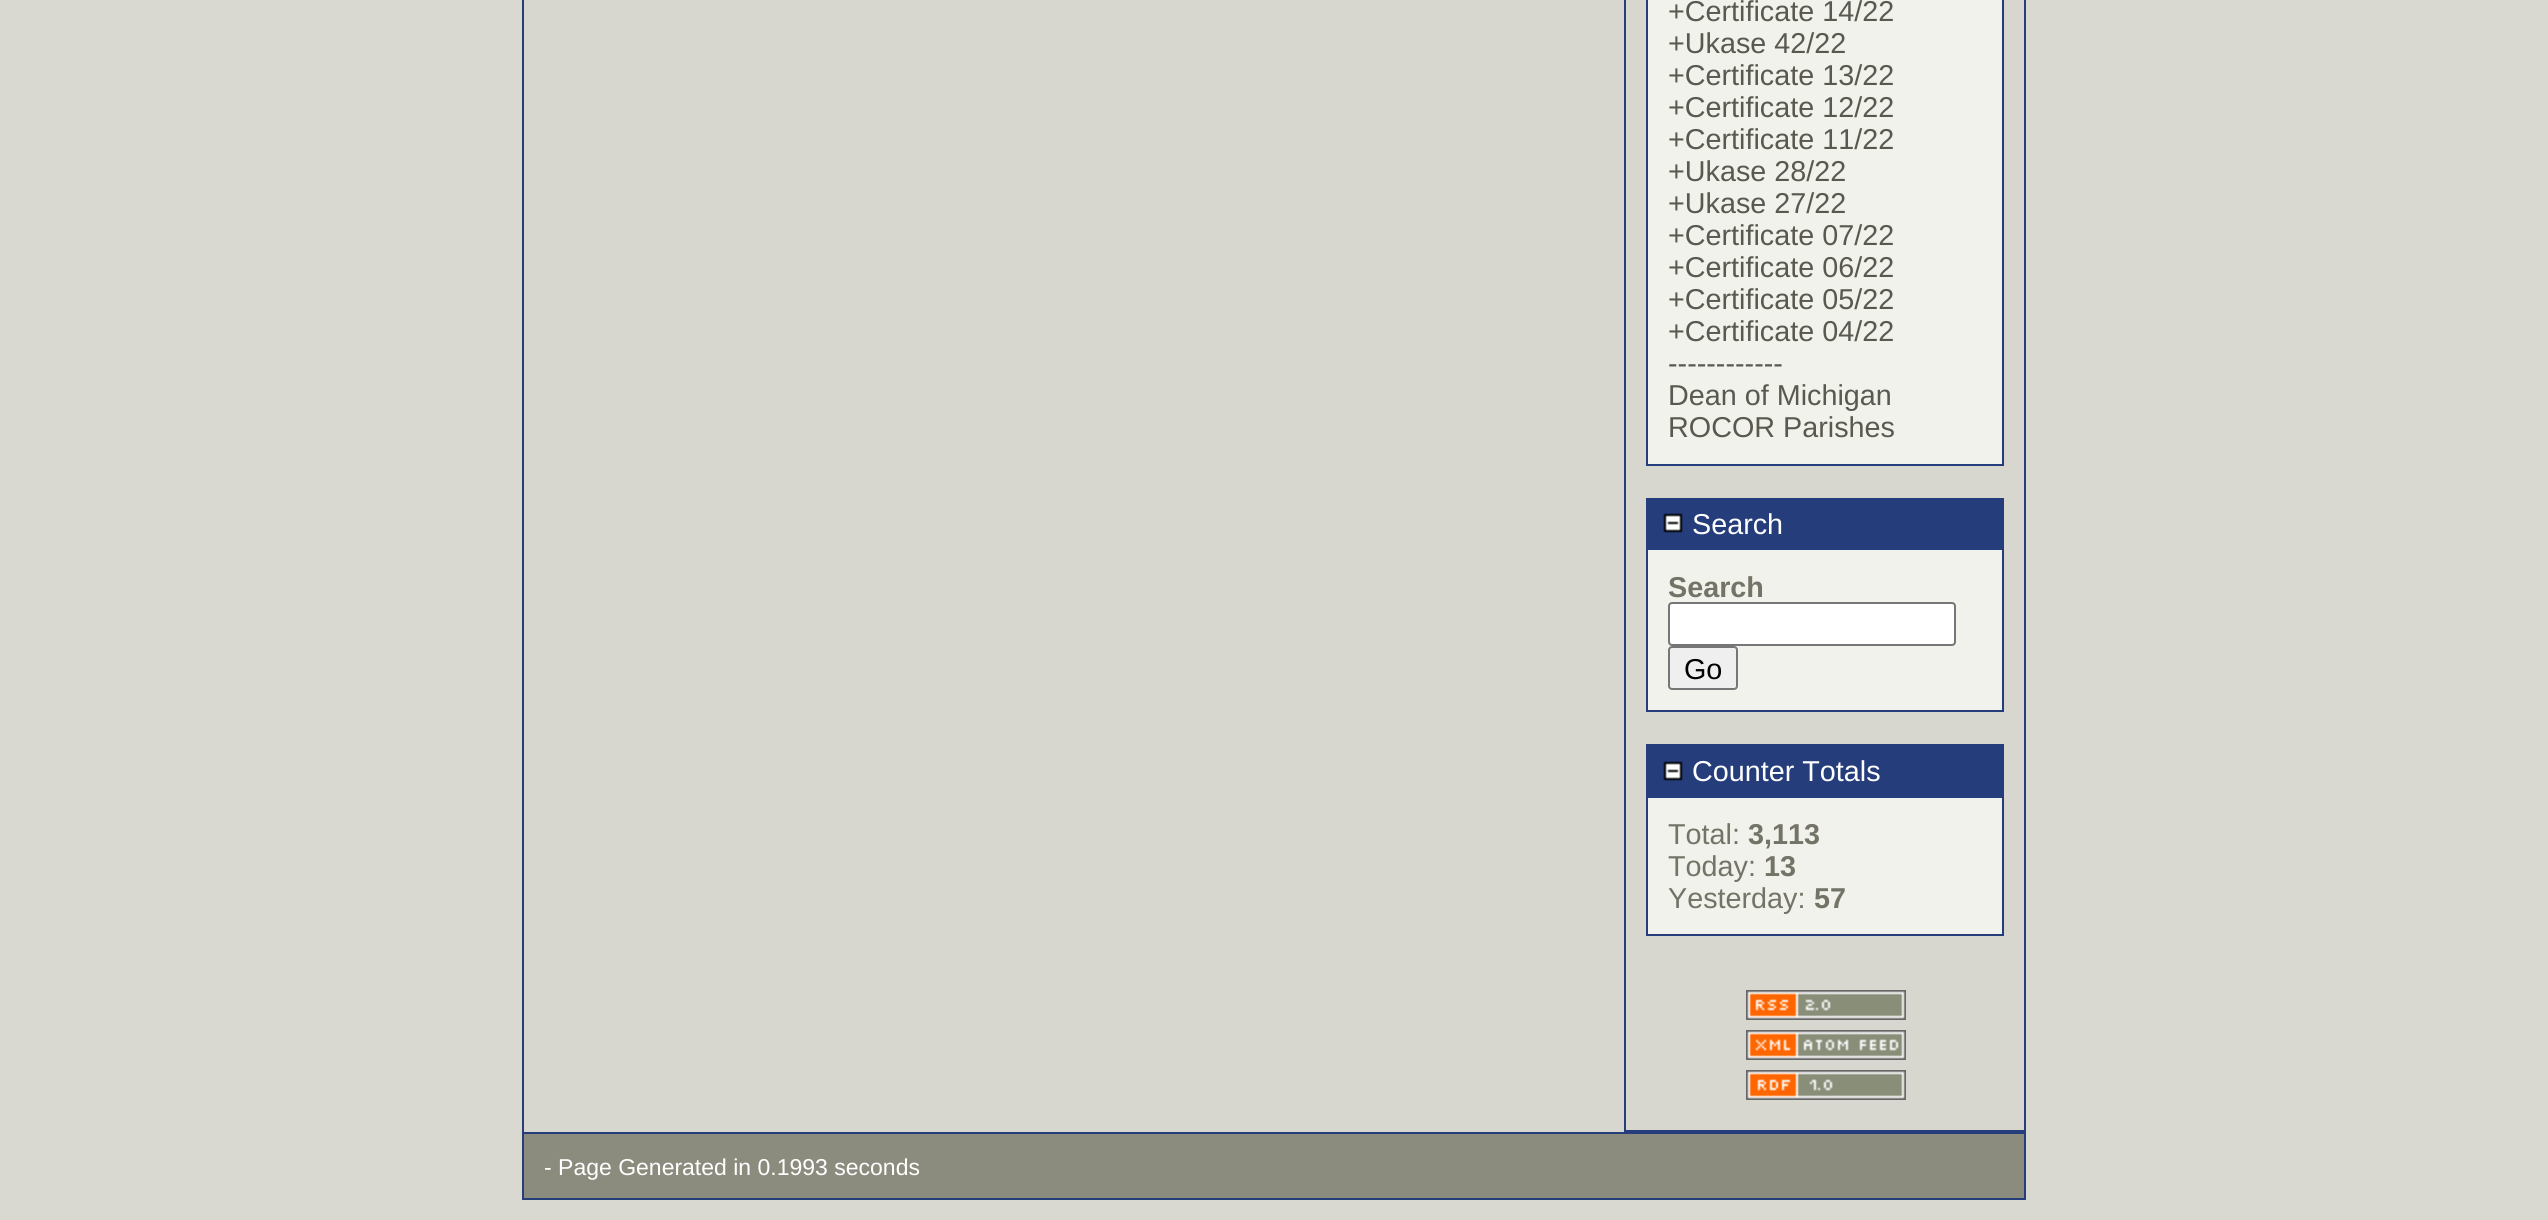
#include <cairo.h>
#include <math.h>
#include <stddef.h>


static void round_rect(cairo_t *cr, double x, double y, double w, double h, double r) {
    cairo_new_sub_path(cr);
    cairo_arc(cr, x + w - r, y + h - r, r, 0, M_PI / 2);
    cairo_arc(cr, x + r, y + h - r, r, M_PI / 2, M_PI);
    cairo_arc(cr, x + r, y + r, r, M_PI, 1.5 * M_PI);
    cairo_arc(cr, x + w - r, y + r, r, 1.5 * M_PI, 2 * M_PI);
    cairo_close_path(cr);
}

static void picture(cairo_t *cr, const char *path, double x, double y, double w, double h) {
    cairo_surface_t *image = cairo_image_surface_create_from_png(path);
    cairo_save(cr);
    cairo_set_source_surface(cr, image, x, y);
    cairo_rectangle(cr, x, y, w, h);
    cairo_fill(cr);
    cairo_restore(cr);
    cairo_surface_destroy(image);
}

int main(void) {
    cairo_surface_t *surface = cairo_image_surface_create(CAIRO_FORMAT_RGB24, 2548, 1220);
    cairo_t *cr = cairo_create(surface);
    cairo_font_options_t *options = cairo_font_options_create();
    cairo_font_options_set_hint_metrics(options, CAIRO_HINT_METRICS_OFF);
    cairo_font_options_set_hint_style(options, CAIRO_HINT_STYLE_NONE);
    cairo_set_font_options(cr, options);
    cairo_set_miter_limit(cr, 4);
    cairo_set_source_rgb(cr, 0.851, 0.851, 0.824);
    cairo_paint(cr);
    cairo_set_source_rgb(cr, 0.843, 0.843, 0.812);
    cairo_rectangle(cr, 524, 0, 1500, 1132);
    cairo_fill(cr);
    cairo_rectangle(cr, 523, -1, 1502, 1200);
    cairo_set_source_rgb(cr, 0.145, 0.239, 0.482);
    cairo_stroke(cr);
    cairo_rectangle(cr, 1624, 1130, 400, 2);
    cairo_fill(cr);
    cairo_rectangle(cr, 1624, 0, 2, 1132);
    cairo_fill(cr);
    cairo_set_source_rgb(cr, 0.949, 0.949, 0.922);
    cairo_rectangle(cr, 1648, 0, 354, 464);
    cairo_fill(cr);
    cairo_set_source_rgb(cr, 0.145, 0.239, 0.482);
    cairo_rectangle(cr, 2002, 0, 2, 466);
    cairo_fill(cr);
    cairo_rectangle(cr, 1646, 464, 358, 2);
    cairo_fill(cr);
    cairo_rectangle(cr, 1646, 0, 2, 466);
    cairo_fill(cr);
    cairo_select_font_face(cr, "Liberation Sans", CAIRO_FONT_SLANT_NORMAL, CAIRO_FONT_WEIGHT_NORMAL);
    cairo_set_font_size(cr, 28.75);
    cairo_set_source_rgb(cr, 0.349, 0.349, 0.31);
    cairo_move_to(cr, 1668, 21);
    cairo_show_text(cr, "+Certificate 14/22");
    cairo_move_to(cr, 1668, 53);
    cairo_show_text(cr, "+Ukase 42/22");
    cairo_move_to(cr, 1668, 85);
    cairo_show_text(cr, "+Certificate 13/22");
    cairo_move_to(cr, 1668, 117);
    cairo_show_text(cr, "+Certificate 12/22");
    cairo_move_to(cr, 1668, 149);
    cairo_show_text(cr, "+Certificate 11/22");
    cairo_move_to(cr, 1668, 181);
    cairo_show_text(cr, "+Ukase 28/22");
    cairo_move_to(cr, 1668, 213);
    cairo_show_text(cr, "+Ukase 27/22");
    cairo_move_to(cr, 1668, 245);
    cairo_show_text(cr, "+Certificate 07/22");
    cairo_move_to(cr, 1668, 277);
    cairo_show_text(cr, "+Certificate 06/22");
    cairo_move_to(cr, 1668, 309);
    cairo_show_text(cr, "+Certificate 05/22");
    cairo_move_to(cr, 1668, 341);
    cairo_show_text(cr, "+Certificate 04/22");
    cairo_move_to(cr, 1668, 373);
    cairo_show_text(cr, "------------");
    cairo_move_to(cr, 1668, 405);
    cairo_show_text(cr, "Dean of Michigan");
    cairo_move_to(cr, 1668, 437);
    cairo_show_text(cr, "ROCOR Parishes");
    cairo_set_source_rgb(cr, 0.145, 0.239, 0.482);
    cairo_rectangle(cr, 1646, 498, 358, 52);
    cairo_fill(cr);
    picture(cr, "img1.png", 1663, 513, 20, 20);
    cairo_set_source_rgb(cr, 1, 1, 1);
    cairo_move_to(cr, 1692, 534);
    cairo_show_text(cr, "Search");
    cairo_set_source_rgb(cr, 0.949, 0.949, 0.922);
    cairo_rectangle(cr, 1648, 550, 354, 160);
    cairo_fill(cr);
    cairo_set_source_rgb(cr, 0.145, 0.239, 0.482);
    cairo_rectangle(cr, 2002, 550, 2, 162);
    cairo_fill(cr);
    cairo_rectangle(cr, 1646, 710, 358, 2);
    cairo_fill(cr);
    cairo_rectangle(cr, 1646, 550, 2, 162);
    cairo_fill(cr);
    cairo_select_font_face(cr, "Liberation Sans", CAIRO_FONT_SLANT_NORMAL, CAIRO_FONT_WEIGHT_BOLD);
    cairo_set_source_rgb(cr, 0.451, 0.451, 0.404);
    cairo_move_to(cr, 1668, 597);
    cairo_show_text(cr, "Search");
    cairo_set_source_rgb(cr, 1, 1, 1);
    round_rect(cr, 1669, 603, 286, 42, 3);
    cairo_fill_preserve(cr);
    cairo_set_source_rgb(cr, 0.463, 0.463, 0.463);
    cairo_stroke(cr);
    cairo_set_source_rgb(cr, 0.937, 0.937, 0.937);
    round_rect(cr, 1669, 647, 68, 42, 3);
    cairo_fill_preserve(cr);
    cairo_set_source_rgb(cr, 0.463, 0.463, 0.463);
    cairo_stroke(cr);
    cairo_select_font_face(cr, "Liberation Sans", CAIRO_FONT_SLANT_NORMAL, CAIRO_FONT_WEIGHT_NORMAL);
    cairo_set_source_rgb(cr, 0, 0, 0);
    cairo_move_to(cr, 1684, 679);
    cairo_show_text(cr, "Go");
    cairo_set_source_rgb(cr, 0.145, 0.239, 0.482);
    cairo_rectangle(cr, 1646, 744, 358, 54);
    cairo_fill(cr);
    picture(cr, "img1.png", 1663, 761, 20, 20);
    cairo_set_source_rgb(cr, 1, 1, 1);
    cairo_move_to(cr, 1692, 781);
    cairo_show_text(cr, "Counter Totals");
    cairo_set_source_rgb(cr, 0.949, 0.949, 0.922);
    cairo_rectangle(cr, 1648, 798, 354, 136);
    cairo_fill(cr);
    cairo_set_source_rgb(cr, 0.145, 0.239, 0.482);
    cairo_rectangle(cr, 2002, 798, 2, 138);
    cairo_fill(cr);
    cairo_rectangle(cr, 1646, 934, 358, 2);
    cairo_fill(cr);
    cairo_rectangle(cr, 1646, 798, 2, 138);
    cairo_fill(cr);
    cairo_set_source_rgb(cr, 0.451, 0.451, 0.404);
    cairo_move_to(cr, 1668, 844);
    cairo_show_text(cr, "Total:");
    cairo_select_font_face(cr, "Liberation Sans", CAIRO_FONT_SLANT_NORMAL, CAIRO_FONT_WEIGHT_BOLD);
    cairo_move_to(cr, 1748, 844);
    cairo_show_text(cr, "3,113");
    cairo_select_font_face(cr, "Liberation Sans", CAIRO_FONT_SLANT_NORMAL, CAIRO_FONT_WEIGHT_NORMAL);
    cairo_move_to(cr, 1668, 876);
    cairo_show_text(cr, "Today:");
    cairo_select_font_face(cr, "Liberation Sans", CAIRO_FONT_SLANT_NORMAL, CAIRO_FONT_WEIGHT_BOLD);
    cairo_move_to(cr, 1764, 876);
    cairo_show_text(cr, "13");
    cairo_select_font_face(cr, "Liberation Sans", CAIRO_FONT_SLANT_NORMAL, CAIRO_FONT_WEIGHT_NORMAL);
    cairo_move_to(cr, 1668, 908);
    cairo_show_text(cr, "Yesterday:");
    cairo_select_font_face(cr, "Liberation Sans", CAIRO_FONT_SLANT_NORMAL, CAIRO_FONT_WEIGHT_BOLD);
    cairo_move_to(cr, 1814, 908);
    cairo_show_text(cr, "57");
    picture(cr, "img2.png", 1746, 990, 160, 30);
    picture(cr, "img3.png", 1746, 1030, 160, 30);
    picture(cr, "img4.png", 1746, 1070, 160, 30);
    cairo_set_source_rgb(cr, 0.549, 0.549, 0.494);
    cairo_rectangle(cr, 524, 1134, 1500, 64);
    cairo_fill(cr);
    cairo_set_source_rgb(cr, 0.145, 0.239, 0.482);
    cairo_rectangle(cr, 524, 1132, 1500, 2);
    cairo_fill(cr);
    cairo_select_font_face(cr, "Liberation Sans", CAIRO_FONT_SLANT_NORMAL, CAIRO_FONT_WEIGHT_NORMAL);
    cairo_set_font_size(cr, 23);
    cairo_set_source_rgb(cr, 1, 1, 1);
    cairo_move_to(cr, 544, 1175);
    cairo_show_text(cr, "- Page Generated in 0.1993 seconds");
    cairo_surface_write_to_png(surface, "page.png");
    cairo_font_options_destroy(options);
    cairo_destroy(cr);
    cairo_surface_destroy(surface);
    return 0;
}
